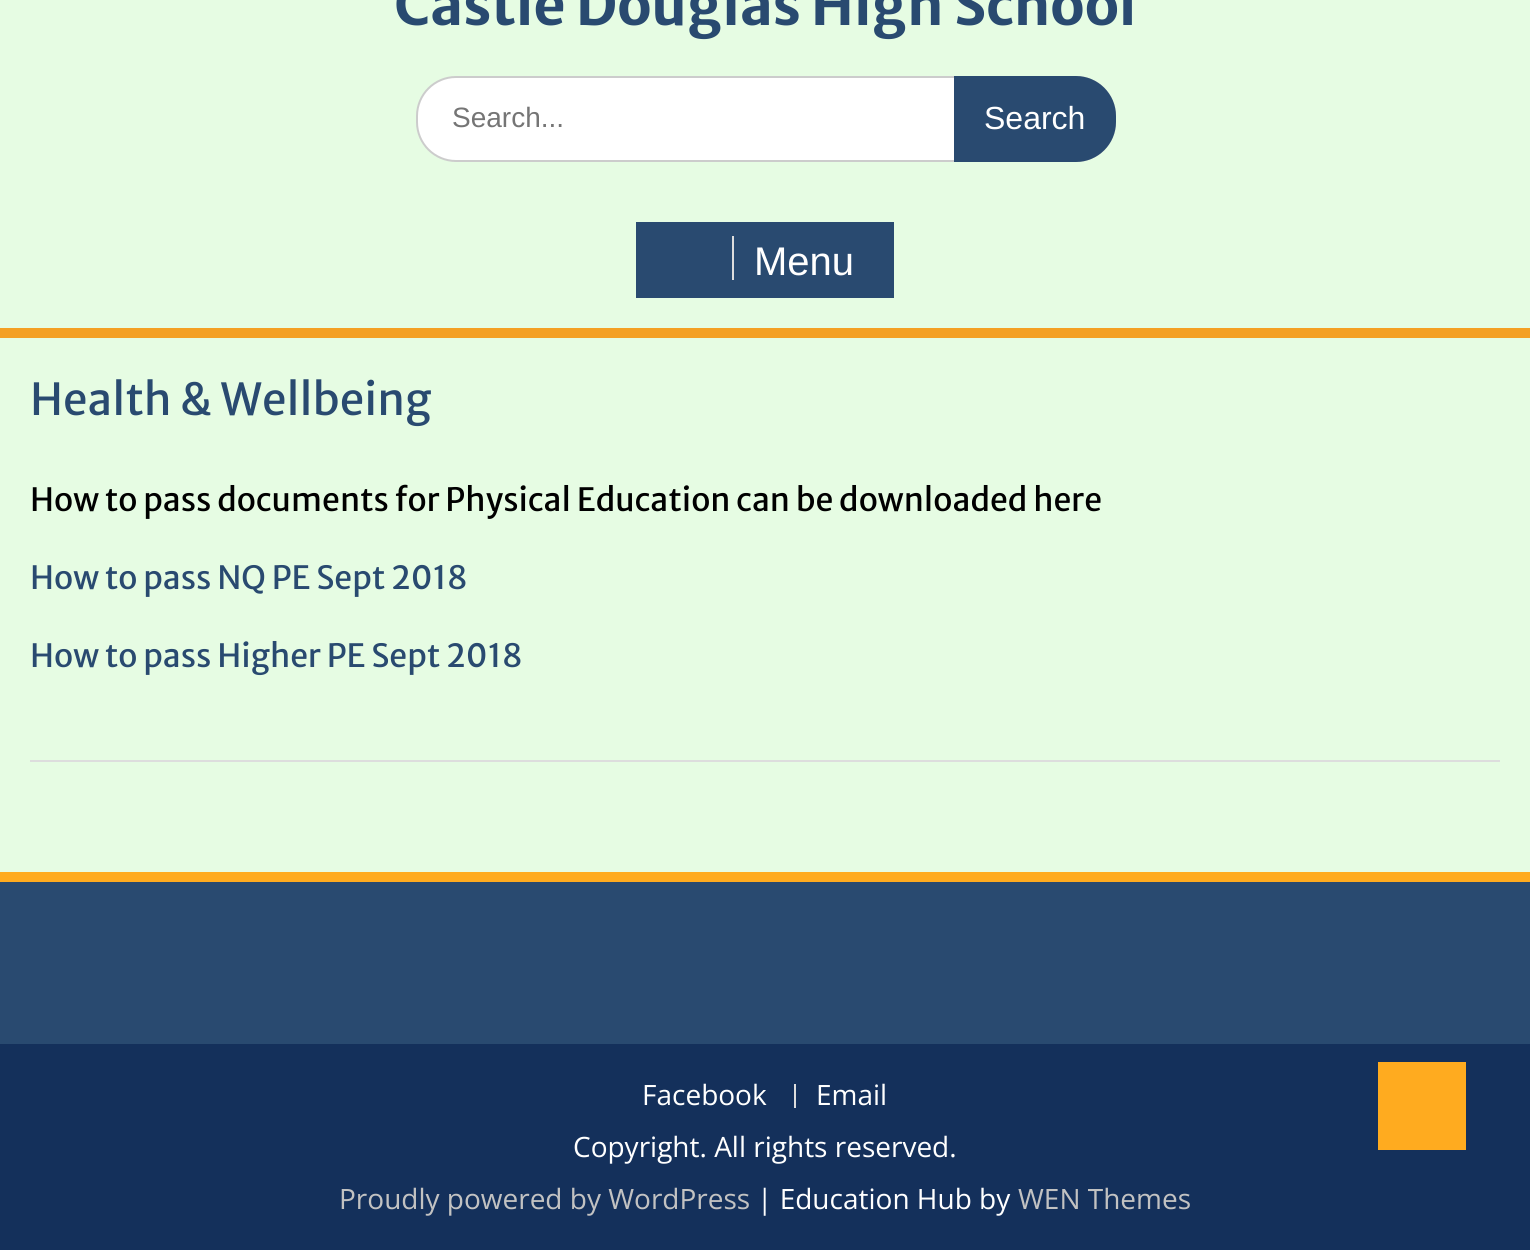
#include <cairo.h>
#include <math.h>
#include <stddef.h>


static void round_rect(cairo_t *cr, double x, double y, double w, double h, double r) {
    cairo_new_sub_path(cr);
    cairo_arc(cr, x + w - r, y + h - r, r, 0, M_PI / 2);
    cairo_arc(cr, x + r, y + h - r, r, M_PI / 2, M_PI);
    cairo_arc(cr, x + r, y + r, r, M_PI, 1.5 * M_PI);
    cairo_arc(cr, x + w - r, y + r, r, 1.5 * M_PI, 2 * M_PI);
    cairo_close_path(cr);
}

int main(void) {
    cairo_surface_t *surface = cairo_image_surface_create(CAIRO_FORMAT_RGB24, 1530, 1250);
    cairo_t *cr = cairo_create(surface);
    cairo_font_options_t *options = cairo_font_options_create();
    cairo_font_options_set_hint_metrics(options, CAIRO_HINT_METRICS_OFF);
    cairo_font_options_set_hint_style(options, CAIRO_HINT_STYLE_NONE);
    cairo_set_font_options(cr, options);
    cairo_set_miter_limit(cr, 4);
    cairo_set_source_rgb(cr, 0.902, 0.988, 0.89);
    cairo_paint(cr);
    cairo_select_font_face(cr, "Merriweather Sans", CAIRO_FONT_SLANT_NORMAL, CAIRO_FONT_WEIGHT_BOLD);
    cairo_set_font_size(cr, 56);
    cairo_set_source_rgb(cr, 0.161, 0.29, 0.439);
    cairo_move_to(cr, 394, 25);
    cairo_show_text(cr, "Castle Douglas High School");
    cairo_set_source_rgb(cr, 1, 1, 1);
    round_rect(cr, 417, 77, 698, 84, 39);
    cairo_fill_preserve(cr);
    cairo_set_source_rgb(cr, 0.8, 0.8, 0.8);
    cairo_stroke(cr);
    cairo_select_font_face(cr, "Liberation Sans", CAIRO_FONT_SLANT_NORMAL, CAIRO_FONT_WEIGHT_NORMAL);
    cairo_set_font_size(cr, 28);
    cairo_set_source_rgb(cr, 0.459, 0.459, 0.459);
    cairo_move_to(cr, 452, 127);
    cairo_show_text(cr, "Search...");
    cairo_set_source_rgb(cr, 0.161, 0.29, 0.439);
    cairo_new_path(cr);
    cairo_move_to(cr, 954, 76);
    cairo_line_to(cr, 1076, 76);
    cairo_curve_to(cr, 1098, 76, 1116, 94, 1116, 116);
    cairo_line_to(cr, 1116, 122);
    cairo_curve_to(cr, 1116, 144, 1098, 162, 1076, 162);
    cairo_line_to(cr, 954, 162);
    cairo_close_path(cr);
    cairo_fill(cr);
    cairo_set_font_size(cr, 32);
    cairo_set_source_rgb(cr, 1, 1, 1);
    cairo_move_to(cr, 984, 129);
    cairo_show_text(cr, "Search");
    cairo_set_source_rgb(cr, 0.957, 0.627, 0.141);
    cairo_rectangle(cr, 0, 328, 1530, 10);
    cairo_fill(cr);
    cairo_set_source_rgb(cr, 0.161, 0.29, 0.439);
    cairo_rectangle(cr, 636, 222, 258, 76);
    cairo_fill(cr);
    cairo_set_source_rgb(cr, 0.867, 0.867, 0.867);
    cairo_rectangle(cr, 732, 236, 2, 44);
    cairo_fill(cr);
    cairo_set_font_size(cr, 40);
    cairo_set_source_rgb(cr, 1, 1, 1);
    cairo_move_to(cr, 754, 275);
    cairo_show_text(cr, "Menu");
    cairo_set_source_rgb(cr, 0.867, 0.867, 0.867);
    cairo_rectangle(cr, 30, 760, 1470, 2);
    cairo_fill(cr);
    cairo_select_font_face(cr, "Merriweather Sans", CAIRO_FONT_SLANT_NORMAL, CAIRO_FONT_WEIGHT_NORMAL);
    cairo_set_font_size(cr, 44);
    cairo_set_source_rgb(cr, 0.161, 0.29, 0.439);
    cairo_move_to(cr, 30, 415);
    cairo_show_text(cr, "Health & Wellbeing");
    cairo_set_font_size(cr, 32);
    cairo_set_source_rgb(cr, 0, 0, 0);
    cairo_move_to(cr, 30, 511);
    cairo_show_text(cr, "How to pass documents for Physical Education can be downloaded here");
    cairo_set_source_rgb(cr, 0.161, 0.29, 0.439);
    cairo_move_to(cr, 30, 589);
    cairo_show_text(cr, "How to pass NQ PE Sept 2018");
    cairo_move_to(cr, 30, 667);
    cairo_show_text(cr, "How to pass Higher PE Sept 2018");
    cairo_rectangle(cr, 0, 882, 1530, 162);
    cairo_fill(cr);
    cairo_set_source_rgb(cr, 1, 0.671, 0.122);
    cairo_rectangle(cr, 0, 872, 1530, 10);
    cairo_fill(cr);
    cairo_set_source_rgb(cr, 0.082, 0.188, 0.357);
    cairo_rectangle(cr, 0, 1044, 1530, 206);
    cairo_fill(cr);
    cairo_select_font_face(cr, "Open Sans", CAIRO_FONT_SLANT_NORMAL, CAIRO_FONT_WEIGHT_NORMAL);
    cairo_set_font_size(cr, 28);
    cairo_set_source_rgb(cr, 1, 1, 1);
    cairo_move_to(cr, 642, 1105);
    cairo_show_text(cr, "Facebook");
    cairo_set_source_rgb(cr, 0.867, 0.867, 0.867);
    cairo_rectangle(cr, 794, 1084, 2, 24);
    cairo_fill(cr);
    cairo_set_source_rgb(cr, 1, 1, 1);
    cairo_move_to(cr, 816, 1105);
    cairo_show_text(cr, "Email");
    cairo_move_to(cr, 573, 1157);
    cairo_show_text(cr, "Copyright. All rights reserved.");
    cairo_set_source_rgb(cr, 0.761, 0.761, 0.761);
    cairo_move_to(cr, 339, 1209);
    cairo_show_text(cr, "Proudly powered by WordPress");
    cairo_set_source_rgb(cr, 1, 1, 1);
    cairo_move_to(cr, 757, 1209);
    cairo_show_text(cr, "| Education Hub by");
    cairo_set_source_rgb(cr, 0.761, 0.761, 0.761);
    cairo_move_to(cr, 1018, 1209);
    cairo_show_text(cr, "WEN Themes");
    cairo_set_source_rgb(cr, 1, 0.671, 0.122);
    cairo_rectangle(cr, 1378, 1062, 88, 88);
    cairo_fill(cr);
    cairo_surface_write_to_png(surface, "page.png");
    cairo_font_options_destroy(options);
    cairo_destroy(cr);
    cairo_surface_destroy(surface);
    return 0;
}
